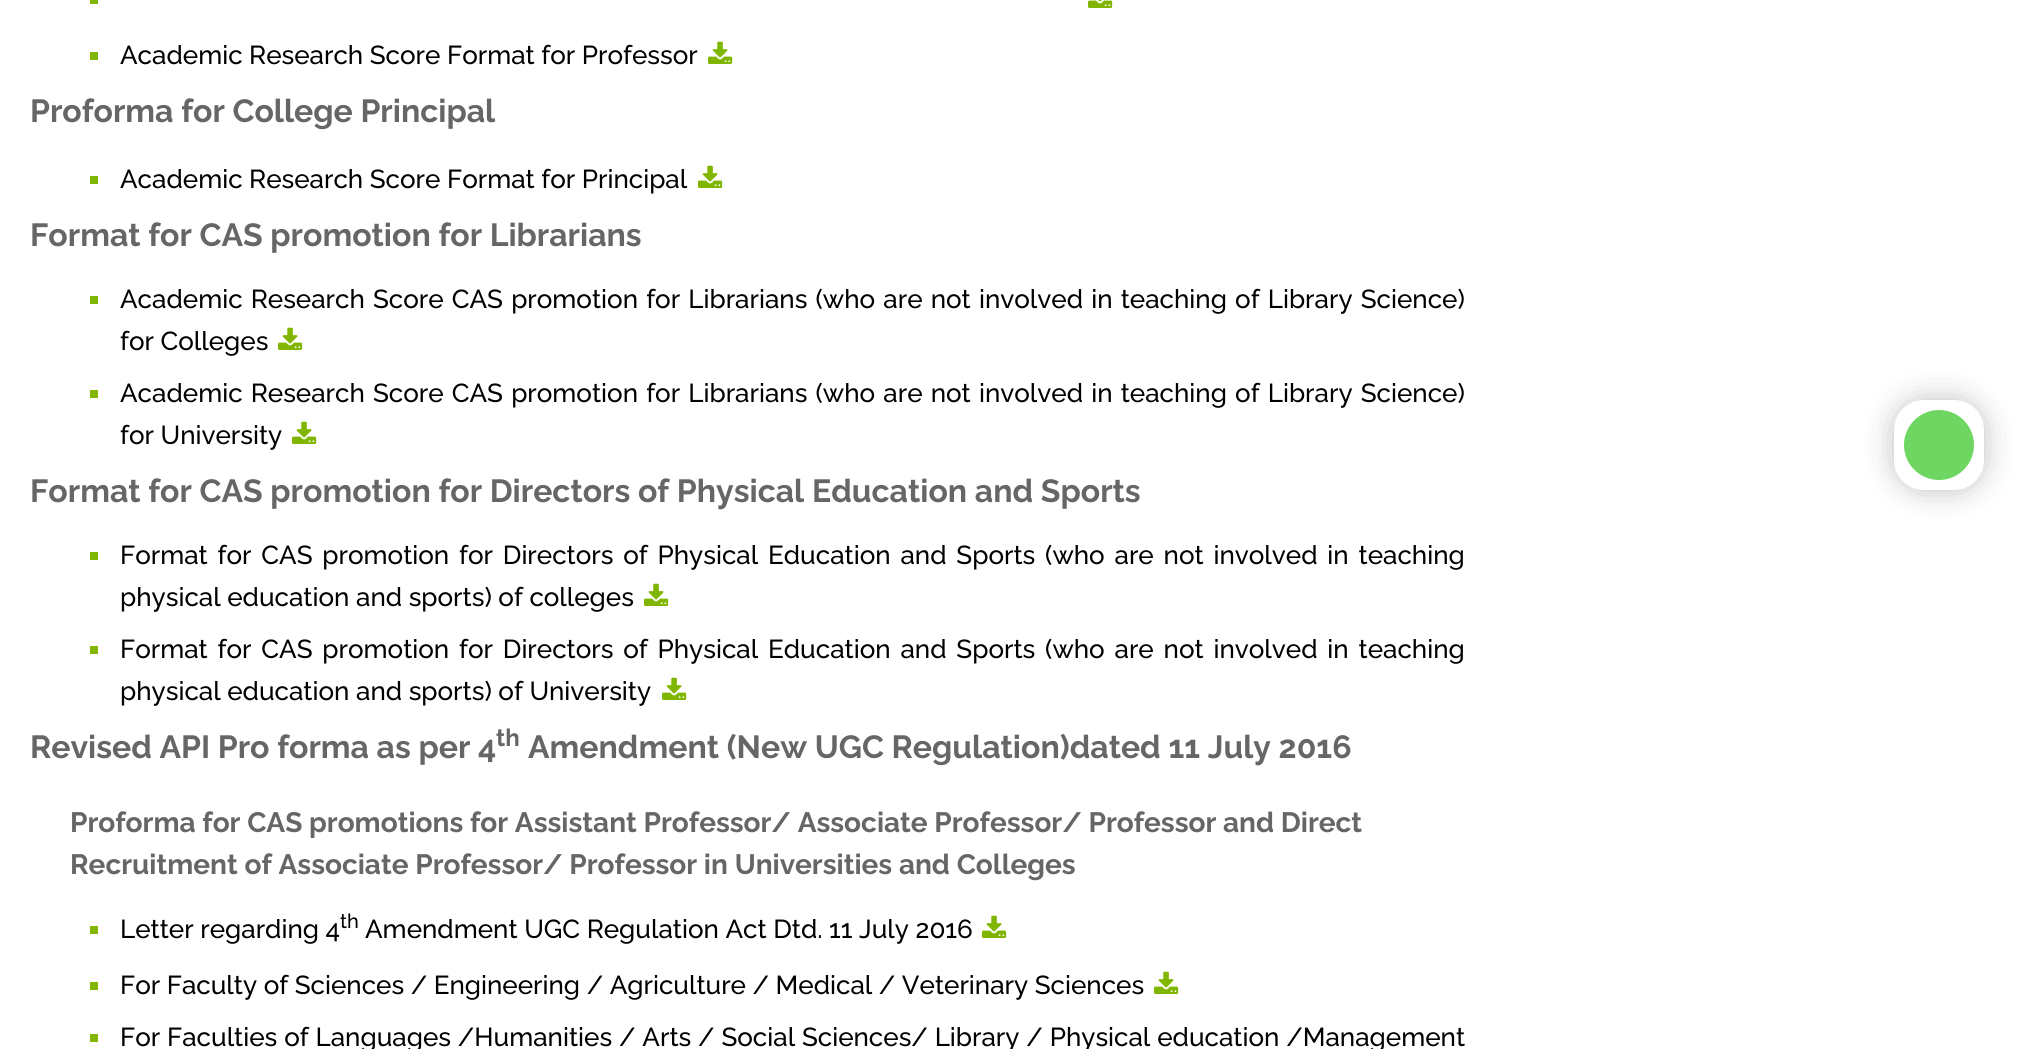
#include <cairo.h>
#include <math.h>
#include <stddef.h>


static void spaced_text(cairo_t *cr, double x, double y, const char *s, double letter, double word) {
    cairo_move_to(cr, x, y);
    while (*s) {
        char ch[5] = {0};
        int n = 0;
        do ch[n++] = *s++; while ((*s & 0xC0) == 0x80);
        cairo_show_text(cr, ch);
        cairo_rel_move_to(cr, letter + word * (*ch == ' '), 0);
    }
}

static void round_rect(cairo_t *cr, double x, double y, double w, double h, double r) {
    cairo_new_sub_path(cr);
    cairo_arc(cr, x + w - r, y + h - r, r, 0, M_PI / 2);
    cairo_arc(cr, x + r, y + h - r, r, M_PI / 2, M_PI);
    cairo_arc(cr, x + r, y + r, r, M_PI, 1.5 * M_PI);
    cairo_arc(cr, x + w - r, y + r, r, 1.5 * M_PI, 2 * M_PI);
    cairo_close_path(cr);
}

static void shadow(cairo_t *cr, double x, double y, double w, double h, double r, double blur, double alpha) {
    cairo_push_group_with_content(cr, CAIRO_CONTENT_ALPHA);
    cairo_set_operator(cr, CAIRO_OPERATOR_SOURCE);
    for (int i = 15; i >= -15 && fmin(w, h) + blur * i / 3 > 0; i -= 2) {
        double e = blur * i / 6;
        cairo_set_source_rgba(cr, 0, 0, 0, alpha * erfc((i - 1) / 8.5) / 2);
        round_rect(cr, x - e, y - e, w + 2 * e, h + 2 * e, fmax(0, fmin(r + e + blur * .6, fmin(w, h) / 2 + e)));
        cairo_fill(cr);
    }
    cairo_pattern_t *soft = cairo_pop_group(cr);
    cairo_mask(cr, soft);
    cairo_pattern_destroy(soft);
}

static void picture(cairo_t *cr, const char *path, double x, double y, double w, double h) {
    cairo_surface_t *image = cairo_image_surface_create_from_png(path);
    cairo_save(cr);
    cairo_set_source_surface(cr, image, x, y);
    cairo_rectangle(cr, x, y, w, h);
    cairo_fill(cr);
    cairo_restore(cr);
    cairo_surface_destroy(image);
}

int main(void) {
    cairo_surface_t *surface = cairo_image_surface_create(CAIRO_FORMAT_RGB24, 2033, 1049);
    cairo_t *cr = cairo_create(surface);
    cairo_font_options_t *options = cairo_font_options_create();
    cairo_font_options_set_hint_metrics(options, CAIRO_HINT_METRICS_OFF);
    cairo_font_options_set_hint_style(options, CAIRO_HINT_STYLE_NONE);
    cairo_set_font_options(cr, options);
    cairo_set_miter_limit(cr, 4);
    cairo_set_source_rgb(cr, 1, 1, 1);
    cairo_paint(cr);
    cairo_set_source_rgb(cr, 0.502, 0.714, 0);
    cairo_rectangle(cr, 90, 0, 8, 4);
    cairo_fill(cr);
    picture(cr, "img1.png", 1088, 0, 25, 8);
    cairo_rectangle(cr, 90, 52, 8, 8);
    cairo_fill(cr);
    cairo_select_font_face(cr, "Raleway Medium", CAIRO_FONT_SLANT_NORMAL, CAIRO_FONT_WEIGHT_NORMAL);
    cairo_set_font_size(cr, 26);
    cairo_set_source_rgb(cr, 0, 0, 0);
    cairo_move_to(cr, 120, 64);
    cairo_show_text(cr, "Academic Research Score Format for Professor");
    picture(cr, "img2.png", 708, 41, 25, 23);
    cairo_select_font_face(cr, "Raleway", CAIRO_FONT_SLANT_NORMAL, CAIRO_FONT_WEIGHT_BOLD);
    cairo_set_font_size(cr, 32);
    cairo_set_source_rgb(cr, 0.4, 0.4, 0.4);
    cairo_move_to(cr, 30, 122);
    cairo_show_text(cr, "Proforma for College Principal");
    cairo_set_source_rgb(cr, 0.502, 0.714, 0);
    cairo_rectangle(cr, 90, 176, 8, 8);
    cairo_fill(cr);
    cairo_select_font_face(cr, "Raleway Medium", CAIRO_FONT_SLANT_NORMAL, CAIRO_FONT_WEIGHT_NORMAL);
    cairo_set_font_size(cr, 26);
    cairo_set_source_rgb(cr, 0, 0, 0);
    cairo_move_to(cr, 120, 188);
    cairo_show_text(cr, "Academic Research Score Format for Principal");
    picture(cr, "img2.png", 698, 165, 25, 23);
    cairo_select_font_face(cr, "Raleway", CAIRO_FONT_SLANT_NORMAL, CAIRO_FONT_WEIGHT_BOLD);
    cairo_set_font_size(cr, 32);
    cairo_set_source_rgb(cr, 0.4, 0.4, 0.4);
    cairo_move_to(cr, 30, 246);
    cairo_show_text(cr, "Format for CAS promotion for Librarians");
    cairo_set_source_rgb(cr, 0.502, 0.714, 0);
    cairo_rectangle(cr, 90, 296, 8, 8);
    cairo_fill(cr);
    cairo_select_font_face(cr, "Raleway Medium", CAIRO_FONT_SLANT_NORMAL, CAIRO_FONT_WEIGHT_NORMAL);
    cairo_set_font_size(cr, 26);
    cairo_set_source_rgb(cr, 0, 0, 0);
    spaced_text(cr, 120, 308, "Academic Research Score CAS promotion for Librarians (who are not involved in teaching of Library Science)", 0, 1.6);
    cairo_move_to(cr, 120, 350);
    cairo_show_text(cr, "for Colleges");
    picture(cr, "img2.png", 278, 327, 25, 23);
    cairo_set_source_rgb(cr, 0.502, 0.714, 0);
    cairo_rectangle(cr, 90, 390, 8, 8);
    cairo_fill(cr);
    cairo_set_source_rgb(cr, 0, 0, 0);
    spaced_text(cr, 120, 402, "Academic Research Score CAS promotion for Librarians (who are not involved in teaching of Library Science)", 0, 1.6);
    cairo_move_to(cr, 120, 444);
    cairo_show_text(cr, "for University");
    picture(cr, "img2.png", 292, 421, 25, 23);
    cairo_select_font_face(cr, "Raleway", CAIRO_FONT_SLANT_NORMAL, CAIRO_FONT_WEIGHT_BOLD);
    cairo_set_font_size(cr, 32);
    cairo_set_source_rgb(cr, 0.4, 0.4, 0.4);
    cairo_move_to(cr, 30, 502);
    cairo_show_text(cr, "Format for CAS promotion for Directors of Physical Education and Sports");
    cairo_set_source_rgb(cr, 0.502, 0.714, 0);
    cairo_rectangle(cr, 90, 552, 8, 8);
    cairo_fill(cr);
    cairo_select_font_face(cr, "Raleway Medium", CAIRO_FONT_SLANT_NORMAL, CAIRO_FONT_WEIGHT_NORMAL);
    cairo_set_font_size(cr, 26);
    cairo_set_source_rgb(cr, 0, 0, 0);
    spaced_text(cr, 120, 564, "Format for CAS promotion for Directors of Physical Education and Sports (who are not involved in teaching", 0, 3.25);
    cairo_move_to(cr, 120, 606);
    cairo_show_text(cr, "physical education and sports) of colleges");
    picture(cr, "img2.png", 644, 583, 25, 23);
    cairo_set_source_rgb(cr, 0.502, 0.714, 0);
    cairo_rectangle(cr, 90, 646, 8, 8);
    cairo_fill(cr);
    cairo_set_source_rgb(cr, 0, 0, 0);
    spaced_text(cr, 120, 658, "Format for CAS promotion for Directors of Physical Education and Sports (who are not involved in teaching", 0, 3.25);
    cairo_move_to(cr, 120, 700);
    cairo_show_text(cr, "physical education and sports) of University");
    picture(cr, "img2.png", 662, 677, 25, 23);
    cairo_select_font_face(cr, "Raleway", CAIRO_FONT_SLANT_NORMAL, CAIRO_FONT_WEIGHT_BOLD);
    cairo_set_font_size(cr, 32);
    cairo_set_source_rgb(cr, 0.4, 0.4, 0.4);
    cairo_move_to(cr, 30, 758);
    cairo_show_text(cr, "Revised API Pro forma as per 4");
    cairo_set_font_size(cr, 24);
    cairo_move_to(cr, 496, 746);
    cairo_show_text(cr, "th");
    cairo_set_font_size(cr, 32);
    cairo_move_to(cr, 528, 758);
    cairo_show_text(cr, "Amendment (New UGC Regulation)dated 11 July 2016");
    cairo_set_font_size(cr, 28);
    cairo_move_to(cr, 70, 832);
    cairo_show_text(cr, "Proforma for CAS promotions for Assistant Professor/ Associate Professor/ Professor and Direct");
    cairo_move_to(cr, 70, 874);
    cairo_show_text(cr, "Recruitment of Associate Professor/ Professor in Universities and Colleges");
    cairo_set_source_rgb(cr, 0.502, 0.714, 0);
    cairo_rectangle(cr, 90, 926, 8, 8);
    cairo_fill(cr);
    cairo_select_font_face(cr, "Raleway Medium", CAIRO_FONT_SLANT_NORMAL, CAIRO_FONT_WEIGHT_NORMAL);
    cairo_set_font_size(cr, 26);
    cairo_set_source_rgb(cr, 0, 0, 0);
    cairo_move_to(cr, 120, 938);
    cairo_show_text(cr, "Letter regarding 4");
    cairo_set_font_size(cr, 20);
    cairo_move_to(cr, 340, 928);
    cairo_show_text(cr, "th");
    cairo_set_font_size(cr, 26);
    cairo_move_to(cr, 365, 938);
    cairo_show_text(cr, "Amendment UGC Regulation Act Dtd. 11 July 2016");
    picture(cr, "img2.png", 982, 915, 25, 23);
    cairo_set_source_rgb(cr, 0.502, 0.714, 0);
    cairo_rectangle(cr, 90, 982, 8, 8);
    cairo_fill(cr);
    cairo_set_source_rgb(cr, 0, 0, 0);
    cairo_move_to(cr, 120, 994);
    cairo_show_text(cr, "For Faculty of Sciences / Engineering / Agriculture / Medical / Veterinary Sciences");
    picture(cr, "img2.png", 1154, 971, 25, 23);
    cairo_set_source_rgb(cr, 0.502, 0.714, 0);
    cairo_rectangle(cr, 90, 1034, 8, 8);
    cairo_fill(cr);
    cairo_set_source_rgb(cr, 0, 0, 0);
    spaced_text(cr, 120, 1046, "For Faculties of Languages /Humanities / Arts / Social Sciences/ Library / Physical education /Management", 0, 0.3);
    cairo_set_source_rgb(cr, 0, 0, 0);
    shadow(cr, 1894, 400, 90, 90, 30, 15, 0.26);
    cairo_set_source_rgb(cr, 1, 1, 1);
    round_rect(cr, 1894, 400, 90, 90, 30);
    cairo_fill(cr);
    cairo_set_source_rgb(cr, 0.439, 0.839, 0.384);
    cairo_arc(cr, 1939, 445, 35, 0, 2 * M_PI);
    cairo_fill(cr);
    cairo_surface_write_to_png(surface, "page.png");
    cairo_font_options_destroy(options);
    cairo_destroy(cr);
    cairo_surface_destroy(surface);
    return 0;
}
